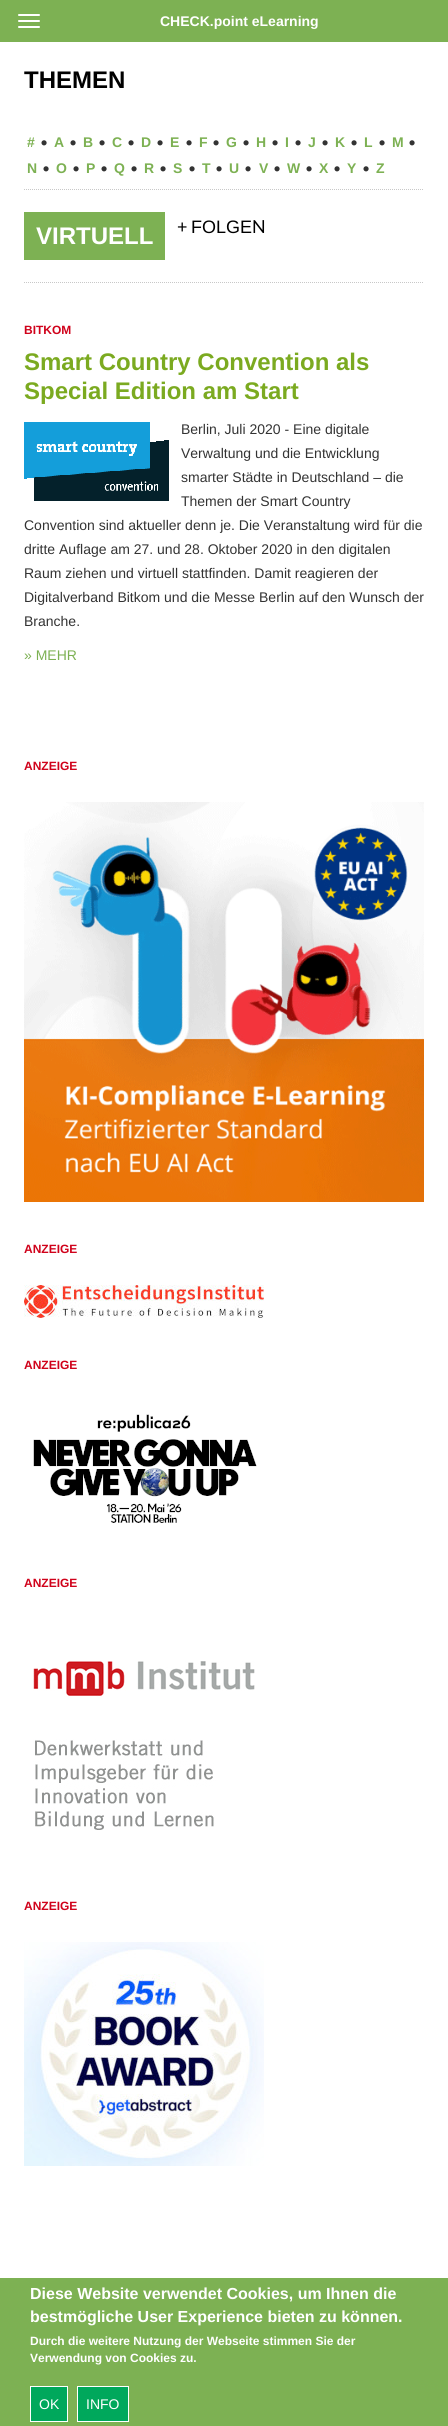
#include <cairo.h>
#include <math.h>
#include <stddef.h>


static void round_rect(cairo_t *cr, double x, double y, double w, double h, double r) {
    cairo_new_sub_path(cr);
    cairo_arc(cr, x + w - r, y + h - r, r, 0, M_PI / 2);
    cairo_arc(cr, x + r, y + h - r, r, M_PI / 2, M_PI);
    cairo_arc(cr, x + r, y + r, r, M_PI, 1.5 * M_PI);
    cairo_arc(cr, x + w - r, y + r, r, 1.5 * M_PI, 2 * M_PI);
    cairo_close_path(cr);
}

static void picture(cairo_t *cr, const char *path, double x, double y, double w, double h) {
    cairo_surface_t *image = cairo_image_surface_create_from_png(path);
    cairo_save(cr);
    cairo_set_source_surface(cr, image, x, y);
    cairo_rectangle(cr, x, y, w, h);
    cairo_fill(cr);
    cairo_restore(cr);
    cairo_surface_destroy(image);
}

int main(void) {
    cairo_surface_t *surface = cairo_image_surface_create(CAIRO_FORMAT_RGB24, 448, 2426);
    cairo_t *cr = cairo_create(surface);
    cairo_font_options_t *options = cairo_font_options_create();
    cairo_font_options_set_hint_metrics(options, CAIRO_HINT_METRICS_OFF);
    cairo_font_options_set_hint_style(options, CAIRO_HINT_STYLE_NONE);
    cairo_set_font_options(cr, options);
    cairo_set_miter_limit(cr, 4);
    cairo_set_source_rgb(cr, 1, 1, 1);
    cairo_paint(cr);
    cairo_set_source_rgb(cr, 0.49, 0.694, 0.325);
    cairo_rectangle(cr, 0, 0, 448, 42);
    cairo_fill(cr);
    cairo_set_source_rgb(cr, 1, 1, 1);
    round_rect(cr, 18, 14, 22, 2, 1);
    cairo_fill(cr);
    round_rect(cr, 18, 20, 22, 2, 1);
    cairo_fill(cr);
    round_rect(cr, 18, 26, 22, 2, 1);
    cairo_fill(cr);
    cairo_select_font_face(cr, "Liberation Sans", CAIRO_FONT_SLANT_NORMAL, CAIRO_FONT_WEIGHT_BOLD);
    cairo_set_font_size(cr, 14);
    cairo_move_to(cr, 160, 26);
    cairo_show_text(cr, "CHECK.point eLearning");
    cairo_set_font_size(cr, 24);
    cairo_set_source_rgb(cr, 0, 0, 0);
    cairo_move_to(cr, 24, 88);
    cairo_show_text(cr, "THEMEN");
    cairo_set_font_size(cr, 14);
    cairo_set_source_rgb(cr, 0.49, 0.694, 0.325);
    cairo_move_to(cr, 27, 147);
    cairo_show_text(cr, "#");
    cairo_select_font_face(cr, "Lato", CAIRO_FONT_SLANT_NORMAL, CAIRO_FONT_WEIGHT_NORMAL);
    cairo_set_source_rgb(cr, 0.2, 0.2, 0.2);
    cairo_move_to(cr, 40, 147);
    cairo_show_text(cr, "•");
    cairo_select_font_face(cr, "Liberation Sans", CAIRO_FONT_SLANT_NORMAL, CAIRO_FONT_WEIGHT_BOLD);
    cairo_set_source_rgb(cr, 0.49, 0.694, 0.325);
    cairo_move_to(cr, 54, 147);
    cairo_show_text(cr, "A");
    cairo_select_font_face(cr, "Lato", CAIRO_FONT_SLANT_NORMAL, CAIRO_FONT_WEIGHT_NORMAL);
    cairo_set_source_rgb(cr, 0.2, 0.2, 0.2);
    cairo_move_to(cr, 69, 147);
    cairo_show_text(cr, "•");
    cairo_select_font_face(cr, "Liberation Sans", CAIRO_FONT_SLANT_NORMAL, CAIRO_FONT_WEIGHT_BOLD);
    cairo_set_source_rgb(cr, 0.49, 0.694, 0.325);
    cairo_move_to(cr, 83, 147);
    cairo_show_text(cr, "B");
    cairo_select_font_face(cr, "Lato", CAIRO_FONT_SLANT_NORMAL, CAIRO_FONT_WEIGHT_NORMAL);
    cairo_set_source_rgb(cr, 0.2, 0.2, 0.2);
    cairo_move_to(cr, 98, 147);
    cairo_show_text(cr, "•");
    cairo_select_font_face(cr, "Liberation Sans", CAIRO_FONT_SLANT_NORMAL, CAIRO_FONT_WEIGHT_BOLD);
    cairo_set_source_rgb(cr, 0.49, 0.694, 0.325);
    cairo_move_to(cr, 112, 147);
    cairo_show_text(cr, "C");
    cairo_select_font_face(cr, "Lato", CAIRO_FONT_SLANT_NORMAL, CAIRO_FONT_WEIGHT_NORMAL);
    cairo_set_source_rgb(cr, 0.2, 0.2, 0.2);
    cairo_move_to(cr, 127, 147);
    cairo_show_text(cr, "•");
    cairo_select_font_face(cr, "Liberation Sans", CAIRO_FONT_SLANT_NORMAL, CAIRO_FONT_WEIGHT_BOLD);
    cairo_set_source_rgb(cr, 0.49, 0.694, 0.325);
    cairo_move_to(cr, 141, 147);
    cairo_show_text(cr, "D");
    cairo_select_font_face(cr, "Lato", CAIRO_FONT_SLANT_NORMAL, CAIRO_FONT_WEIGHT_NORMAL);
    cairo_set_source_rgb(cr, 0.2, 0.2, 0.2);
    cairo_move_to(cr, 156, 147);
    cairo_show_text(cr, "•");
    cairo_select_font_face(cr, "Liberation Sans", CAIRO_FONT_SLANT_NORMAL, CAIRO_FONT_WEIGHT_BOLD);
    cairo_set_source_rgb(cr, 0.49, 0.694, 0.325);
    cairo_move_to(cr, 170, 147);
    cairo_show_text(cr, "E");
    cairo_select_font_face(cr, "Lato", CAIRO_FONT_SLANT_NORMAL, CAIRO_FONT_WEIGHT_NORMAL);
    cairo_set_source_rgb(cr, 0.2, 0.2, 0.2);
    cairo_move_to(cr, 185, 147);
    cairo_show_text(cr, "•");
    cairo_select_font_face(cr, "Liberation Sans", CAIRO_FONT_SLANT_NORMAL, CAIRO_FONT_WEIGHT_BOLD);
    cairo_set_source_rgb(cr, 0.49, 0.694, 0.325);
    cairo_move_to(cr, 199, 147);
    cairo_show_text(cr, "F");
    cairo_select_font_face(cr, "Lato", CAIRO_FONT_SLANT_NORMAL, CAIRO_FONT_WEIGHT_NORMAL);
    cairo_set_source_rgb(cr, 0.2, 0.2, 0.2);
    cairo_move_to(cr, 212, 147);
    cairo_show_text(cr, "•");
    cairo_select_font_face(cr, "Liberation Sans", CAIRO_FONT_SLANT_NORMAL, CAIRO_FONT_WEIGHT_BOLD);
    cairo_set_source_rgb(cr, 0.49, 0.694, 0.325);
    cairo_move_to(cr, 226, 147);
    cairo_show_text(cr, "G");
    cairo_select_font_face(cr, "Lato", CAIRO_FONT_SLANT_NORMAL, CAIRO_FONT_WEIGHT_NORMAL);
    cairo_set_source_rgb(cr, 0.2, 0.2, 0.2);
    cairo_move_to(cr, 242, 147);
    cairo_show_text(cr, "•");
    cairo_select_font_face(cr, "Liberation Sans", CAIRO_FONT_SLANT_NORMAL, CAIRO_FONT_WEIGHT_BOLD);
    cairo_set_source_rgb(cr, 0.49, 0.694, 0.325);
    cairo_move_to(cr, 256, 147);
    cairo_show_text(cr, "H");
    cairo_select_font_face(cr, "Lato", CAIRO_FONT_SLANT_NORMAL, CAIRO_FONT_WEIGHT_NORMAL);
    cairo_set_source_rgb(cr, 0.2, 0.2, 0.2);
    cairo_move_to(cr, 271, 147);
    cairo_show_text(cr, "•");
    cairo_select_font_face(cr, "Liberation Sans", CAIRO_FONT_SLANT_NORMAL, CAIRO_FONT_WEIGHT_BOLD);
    cairo_set_source_rgb(cr, 0.49, 0.694, 0.325);
    cairo_move_to(cr, 285, 147);
    cairo_show_text(cr, "I");
    cairo_select_font_face(cr, "Lato", CAIRO_FONT_SLANT_NORMAL, CAIRO_FONT_WEIGHT_NORMAL);
    cairo_set_source_rgb(cr, 0.2, 0.2, 0.2);
    cairo_move_to(cr, 294, 147);
    cairo_show_text(cr, "•");
    cairo_select_font_face(cr, "Liberation Sans", CAIRO_FONT_SLANT_NORMAL, CAIRO_FONT_WEIGHT_BOLD);
    cairo_set_source_rgb(cr, 0.49, 0.694, 0.325);
    cairo_move_to(cr, 308, 147);
    cairo_show_text(cr, "J");
    cairo_select_font_face(cr, "Lato", CAIRO_FONT_SLANT_NORMAL, CAIRO_FONT_WEIGHT_NORMAL);
    cairo_set_source_rgb(cr, 0.2, 0.2, 0.2);
    cairo_move_to(cr, 321, 147);
    cairo_show_text(cr, "•");
    cairo_select_font_face(cr, "Liberation Sans", CAIRO_FONT_SLANT_NORMAL, CAIRO_FONT_WEIGHT_BOLD);
    cairo_set_source_rgb(cr, 0.49, 0.694, 0.325);
    cairo_move_to(cr, 335, 147);
    cairo_show_text(cr, "K");
    cairo_select_font_face(cr, "Lato", CAIRO_FONT_SLANT_NORMAL, CAIRO_FONT_WEIGHT_NORMAL);
    cairo_set_source_rgb(cr, 0.2, 0.2, 0.2);
    cairo_move_to(cr, 350, 147);
    cairo_show_text(cr, "•");
    cairo_select_font_face(cr, "Liberation Sans", CAIRO_FONT_SLANT_NORMAL, CAIRO_FONT_WEIGHT_BOLD);
    cairo_set_source_rgb(cr, 0.49, 0.694, 0.325);
    cairo_move_to(cr, 364, 147);
    cairo_show_text(cr, "L");
    cairo_select_font_face(cr, "Lato", CAIRO_FONT_SLANT_NORMAL, CAIRO_FONT_WEIGHT_NORMAL);
    cairo_set_source_rgb(cr, 0.2, 0.2, 0.2);
    cairo_move_to(cr, 378, 147);
    cairo_show_text(cr, "•");
    cairo_select_font_face(cr, "Liberation Sans", CAIRO_FONT_SLANT_NORMAL, CAIRO_FONT_WEIGHT_BOLD);
    cairo_set_source_rgb(cr, 0.49, 0.694, 0.325);
    cairo_move_to(cr, 392, 147);
    cairo_show_text(cr, "M");
    cairo_select_font_face(cr, "Lato", CAIRO_FONT_SLANT_NORMAL, CAIRO_FONT_WEIGHT_NORMAL);
    cairo_set_source_rgb(cr, 0.2, 0.2, 0.2);
    cairo_move_to(cr, 408, 147);
    cairo_show_text(cr, "•");
    cairo_select_font_face(cr, "Liberation Sans", CAIRO_FONT_SLANT_NORMAL, CAIRO_FONT_WEIGHT_BOLD);
    cairo_set_source_rgb(cr, 0.49, 0.694, 0.325);
    cairo_move_to(cr, 27, 173);
    cairo_show_text(cr, "N");
    cairo_select_font_face(cr, "Lato", CAIRO_FONT_SLANT_NORMAL, CAIRO_FONT_WEIGHT_NORMAL);
    cairo_set_source_rgb(cr, 0.2, 0.2, 0.2);
    cairo_move_to(cr, 42, 173);
    cairo_show_text(cr, "•");
    cairo_select_font_face(cr, "Liberation Sans", CAIRO_FONT_SLANT_NORMAL, CAIRO_FONT_WEIGHT_BOLD);
    cairo_set_source_rgb(cr, 0.49, 0.694, 0.325);
    cairo_move_to(cr, 56, 173);
    cairo_show_text(cr, "O");
    cairo_select_font_face(cr, "Lato", CAIRO_FONT_SLANT_NORMAL, CAIRO_FONT_WEIGHT_NORMAL);
    cairo_set_source_rgb(cr, 0.2, 0.2, 0.2);
    cairo_move_to(cr, 72, 173);
    cairo_show_text(cr, "•");
    cairo_select_font_face(cr, "Liberation Sans", CAIRO_FONT_SLANT_NORMAL, CAIRO_FONT_WEIGHT_BOLD);
    cairo_set_source_rgb(cr, 0.49, 0.694, 0.325);
    cairo_move_to(cr, 86, 173);
    cairo_show_text(cr, "P");
    cairo_select_font_face(cr, "Lato", CAIRO_FONT_SLANT_NORMAL, CAIRO_FONT_WEIGHT_NORMAL);
    cairo_set_source_rgb(cr, 0.2, 0.2, 0.2);
    cairo_move_to(cr, 100, 173);
    cairo_show_text(cr, "•");
    cairo_select_font_face(cr, "Liberation Sans", CAIRO_FONT_SLANT_NORMAL, CAIRO_FONT_WEIGHT_BOLD);
    cairo_set_source_rgb(cr, 0.49, 0.694, 0.325);
    cairo_move_to(cr, 114, 173);
    cairo_show_text(cr, "Q");
    cairo_select_font_face(cr, "Lato", CAIRO_FONT_SLANT_NORMAL, CAIRO_FONT_WEIGHT_NORMAL);
    cairo_set_source_rgb(cr, 0.2, 0.2, 0.2);
    cairo_move_to(cr, 130, 173);
    cairo_show_text(cr, "•");
    cairo_select_font_face(cr, "Liberation Sans", CAIRO_FONT_SLANT_NORMAL, CAIRO_FONT_WEIGHT_BOLD);
    cairo_set_source_rgb(cr, 0.49, 0.694, 0.325);
    cairo_move_to(cr, 144, 173);
    cairo_show_text(cr, "R");
    cairo_select_font_face(cr, "Lato", CAIRO_FONT_SLANT_NORMAL, CAIRO_FONT_WEIGHT_NORMAL);
    cairo_set_source_rgb(cr, 0.2, 0.2, 0.2);
    cairo_move_to(cr, 159, 173);
    cairo_show_text(cr, "•");
    cairo_select_font_face(cr, "Liberation Sans", CAIRO_FONT_SLANT_NORMAL, CAIRO_FONT_WEIGHT_BOLD);
    cairo_set_source_rgb(cr, 0.49, 0.694, 0.325);
    cairo_move_to(cr, 173, 173);
    cairo_show_text(cr, "S");
    cairo_select_font_face(cr, "Lato", CAIRO_FONT_SLANT_NORMAL, CAIRO_FONT_WEIGHT_NORMAL);
    cairo_set_source_rgb(cr, 0.2, 0.2, 0.2);
    cairo_move_to(cr, 188, 173);
    cairo_show_text(cr, "•");
    cairo_select_font_face(cr, "Liberation Sans", CAIRO_FONT_SLANT_NORMAL, CAIRO_FONT_WEIGHT_BOLD);
    cairo_set_source_rgb(cr, 0.49, 0.694, 0.325);
    cairo_move_to(cr, 202, 173);
    cairo_show_text(cr, "T");
    cairo_select_font_face(cr, "Lato", CAIRO_FONT_SLANT_NORMAL, CAIRO_FONT_WEIGHT_NORMAL);
    cairo_set_source_rgb(cr, 0.2, 0.2, 0.2);
    cairo_move_to(cr, 215, 173);
    cairo_show_text(cr, "•");
    cairo_select_font_face(cr, "Liberation Sans", CAIRO_FONT_SLANT_NORMAL, CAIRO_FONT_WEIGHT_BOLD);
    cairo_set_source_rgb(cr, 0.49, 0.694, 0.325);
    cairo_move_to(cr, 229, 173);
    cairo_show_text(cr, "U");
    cairo_select_font_face(cr, "Lato", CAIRO_FONT_SLANT_NORMAL, CAIRO_FONT_WEIGHT_NORMAL);
    cairo_set_source_rgb(cr, 0.2, 0.2, 0.2);
    cairo_move_to(cr, 244, 173);
    cairo_show_text(cr, "•");
    cairo_select_font_face(cr, "Liberation Sans", CAIRO_FONT_SLANT_NORMAL, CAIRO_FONT_WEIGHT_BOLD);
    cairo_set_source_rgb(cr, 0.49, 0.694, 0.325);
    cairo_move_to(cr, 259, 173);
    cairo_show_text(cr, "V");
    cairo_select_font_face(cr, "Lato", CAIRO_FONT_SLANT_NORMAL, CAIRO_FONT_WEIGHT_NORMAL);
    cairo_set_source_rgb(cr, 0.2, 0.2, 0.2);
    cairo_move_to(cr, 273, 173);
    cairo_show_text(cr, "•");
    cairo_select_font_face(cr, "Liberation Sans", CAIRO_FONT_SLANT_NORMAL, CAIRO_FONT_WEIGHT_BOLD);
    cairo_set_source_rgb(cr, 0.49, 0.694, 0.325);
    cairo_move_to(cr, 287, 173);
    cairo_show_text(cr, "W");
    cairo_select_font_face(cr, "Lato", CAIRO_FONT_SLANT_NORMAL, CAIRO_FONT_WEIGHT_NORMAL);
    cairo_set_source_rgb(cr, 0.2, 0.2, 0.2);
    cairo_move_to(cr, 305, 173);
    cairo_show_text(cr, "•");
    cairo_select_font_face(cr, "Liberation Sans", CAIRO_FONT_SLANT_NORMAL, CAIRO_FONT_WEIGHT_BOLD);
    cairo_set_source_rgb(cr, 0.49, 0.694, 0.325);
    cairo_move_to(cr, 319, 173);
    cairo_show_text(cr, "X");
    cairo_select_font_face(cr, "Lato", CAIRO_FONT_SLANT_NORMAL, CAIRO_FONT_WEIGHT_NORMAL);
    cairo_set_source_rgb(cr, 0.2, 0.2, 0.2);
    cairo_move_to(cr, 333, 173);
    cairo_show_text(cr, "•");
    cairo_select_font_face(cr, "Liberation Sans", CAIRO_FONT_SLANT_NORMAL, CAIRO_FONT_WEIGHT_BOLD);
    cairo_set_source_rgb(cr, 0.49, 0.694, 0.325);
    cairo_move_to(cr, 347, 173);
    cairo_show_text(cr, "Y");
    cairo_select_font_face(cr, "Lato", CAIRO_FONT_SLANT_NORMAL, CAIRO_FONT_WEIGHT_NORMAL);
    cairo_set_source_rgb(cr, 0.2, 0.2, 0.2);
    cairo_move_to(cr, 362, 173);
    cairo_show_text(cr, "•");
    cairo_select_font_face(cr, "Liberation Sans", CAIRO_FONT_SLANT_NORMAL, CAIRO_FONT_WEIGHT_BOLD);
    cairo_set_source_rgb(cr, 0.49, 0.694, 0.325);
    cairo_move_to(cr, 376, 173);
    cairo_show_text(cr, "Z");
    cairo_new_path(cr);
    cairo_move_to(cr, 24, 189.5);
    cairo_line_to(cr, 424, 189.5);
    cairo_set_source_rgb(cr, 0.784, 0.784, 0.784);
    cairo_set_line_width(cr, 1);
    cairo_set_dash(cr, (double[]){1, 1}, 2, 0);
    cairo_stroke(cr);
    cairo_new_path(cr);
    cairo_move_to(cr, 24, 282.5);
    cairo_line_to(cr, 424, 282.5);
    cairo_stroke(cr);
    cairo_set_source_rgb(cr, 0.49, 0.694, 0.325);
    cairo_rectangle(cr, 24, 212, 141, 48);
    cairo_fill(cr);
    cairo_set_font_size(cr, 24);
    cairo_set_source_rgb(cr, 1, 1, 1);
    cairo_move_to(cr, 36, 244);
    cairo_show_text(cr, "VIRTUELL");
    cairo_select_font_face(cr, "Lato", CAIRO_FONT_SLANT_NORMAL, CAIRO_FONT_WEIGHT_NORMAL);
    cairo_set_font_size(cr, 18);
    cairo_set_source_rgb(cr, 0, 0, 0);
    cairo_move_to(cr, 177, 233);
    cairo_show_text(cr, "+");
    cairo_select_font_face(cr, "Liberation Sans", CAIRO_FONT_SLANT_NORMAL, CAIRO_FONT_WEIGHT_NORMAL);
    cairo_move_to(cr, 191, 233);
    cairo_show_text(cr, "FOLGE");
    cairo_select_font_face(cr, "Lato", CAIRO_FONT_SLANT_NORMAL, CAIRO_FONT_WEIGHT_NORMAL);
    cairo_move_to(cr, 252, 233);
    cairo_show_text(cr, "N");
    cairo_select_font_face(cr, "Liberation Sans", CAIRO_FONT_SLANT_NORMAL, CAIRO_FONT_WEIGHT_BOLD);
    cairo_set_font_size(cr, 12);
    cairo_set_source_rgb(cr, 0.816, 0.008, 0.106);
    cairo_move_to(cr, 24, 334);
    cairo_show_text(cr, "BITKOM");
    cairo_set_font_size(cr, 24);
    cairo_set_source_rgb(cr, 0.482, 0.667, 0.125);
    cairo_move_to(cr, 24, 370);
    cairo_show_text(cr, "Smart Country Convention als");
    cairo_move_to(cr, 24, 399);
    cairo_show_text(cr, "Special Edition am Start");
    picture(cr, "img1.png", 24, 422, 145, 79);
    cairo_select_font_face(cr, "Liberation Sans", CAIRO_FONT_SLANT_NORMAL, CAIRO_FONT_WEIGHT_NORMAL);
    cairo_set_font_size(cr, 14);
    cairo_set_source_rgb(cr, 0.2, 0.2, 0.2);
    cairo_move_to(cr, 181, 434);
    cairo_show_text(cr, "Berlin, Juli 2020 - Eine digitale");
    cairo_move_to(cr, 181, 458);
    cairo_show_text(cr, "Verwaltung und die Entwicklung");
    cairo_move_to(cr, 181, 482);
    cairo_show_text(cr, "smarter Städte in Deutschland – die");
    cairo_move_to(cr, 181, 506);
    cairo_show_text(cr, "Themen der Smart Country");
    cairo_move_to(cr, 24, 530);
    cairo_show_text(cr, "Convention sind aktueller denn je. Die Veranstaltung wird für die");
    cairo_move_to(cr, 24, 554);
    cairo_show_text(cr, "dritte Auflage am 27. und 28. Oktober 2020 in den digitalen");
    cairo_move_to(cr, 24, 578);
    cairo_show_text(cr, "Raum ziehen und virtuell stattfinden. Damit reagieren der");
    cairo_move_to(cr, 24, 602);
    cairo_show_text(cr, "Digitalverband Bitkom und die Messe Berlin auf den Wunsch der");
    cairo_move_to(cr, 24, 626);
    cairo_show_text(cr, "Branche.");
    cairo_set_source_rgb(cr, 0.49, 0.694, 0.325);
    cairo_move_to(cr, 24, 660);
    cairo_show_text(cr, "» MEHR");
    cairo_select_font_face(cr, "Liberation Sans", CAIRO_FONT_SLANT_NORMAL, CAIRO_FONT_WEIGHT_BOLD);
    cairo_set_font_size(cr, 12);
    cairo_set_source_rgb(cr, 0.816, 0.008, 0.106);
    cairo_move_to(cr, 24, 770);
    cairo_show_text(cr, "ANZEIGE");
    picture(cr, "img2.png", 24, 802, 400, 400);
    cairo_move_to(cr, 24, 1253);
    cairo_show_text(cr, "ANZEIGE");
    picture(cr, "img3.png", 24, 1285, 240, 33);
    cairo_move_to(cr, 24, 1369);
    cairo_show_text(cr, "ANZEIGE");
    picture(cr, "img4.png", 33, 1414, 224, 109);
    cairo_move_to(cr, 24, 1587);
    cairo_show_text(cr, "ANZEIGE");
    picture(cr, "img5.png", 33, 1661, 222, 169);
    cairo_move_to(cr, 24, 1910);
    cairo_show_text(cr, "ANZEIGE");
    picture(cr, "img6.png", 24, 1942, 240, 224);
    cairo_set_source_rgb(cr, 0.49, 0.694, 0.325);
    cairo_rectangle(cr, 0, 2278, 448, 148);
    cairo_fill(cr);
    cairo_set_font_size(cr, 16);
    cairo_set_source_rgb(cr, 1, 1, 1);
    cairo_move_to(cr, 30, 2299);
    cairo_show_text(cr, "Diese Website verwendet Cookies, um Ihnen die");
    cairo_move_to(cr, 30, 2322);
    cairo_show_text(cr, "bestmögliche User Experience bieten zu können.");
    cairo_set_font_size(cr, 12);
    cairo_move_to(cr, 30, 2345);
    cairo_show_text(cr, "Durch die weitere Nutzung der Webseite stimmen Sie der");
    cairo_move_to(cr, 30, 2362);
    cairo_show_text(cr, "Verwendung von Cookies zu.");
    cairo_set_source_rgb(cr, 0, 0.659, 0.361);
    cairo_rectangle(cr, 30.5, 2386.5, 37, 35);
    cairo_fill_preserve(cr);
    cairo_set_source_rgb(cr, 1, 1, 1);
    cairo_set_dash(cr, NULL, 0, 0);
    cairo_stroke(cr);
    cairo_select_font_face(cr, "Liberation Sans", CAIRO_FONT_SLANT_NORMAL, CAIRO_FONT_WEIGHT_NORMAL);
    cairo_set_font_size(cr, 14);
    cairo_move_to(cr, 39, 2409);
    cairo_show_text(cr, "OK");
    cairo_set_source_rgb(cr, 0, 0.659, 0.361);
    cairo_rectangle(cr, 77.5, 2386.5, 51, 35);
    cairo_fill_preserve(cr);
    cairo_set_source_rgb(cr, 1, 1, 1);
    cairo_stroke(cr);
    cairo_move_to(cr, 86, 2409);
    cairo_show_text(cr, "INFO");
    cairo_surface_write_to_png(surface, "page.png");
    cairo_font_options_destroy(options);
    cairo_destroy(cr);
    cairo_surface_destroy(surface);
    return 0;
}
